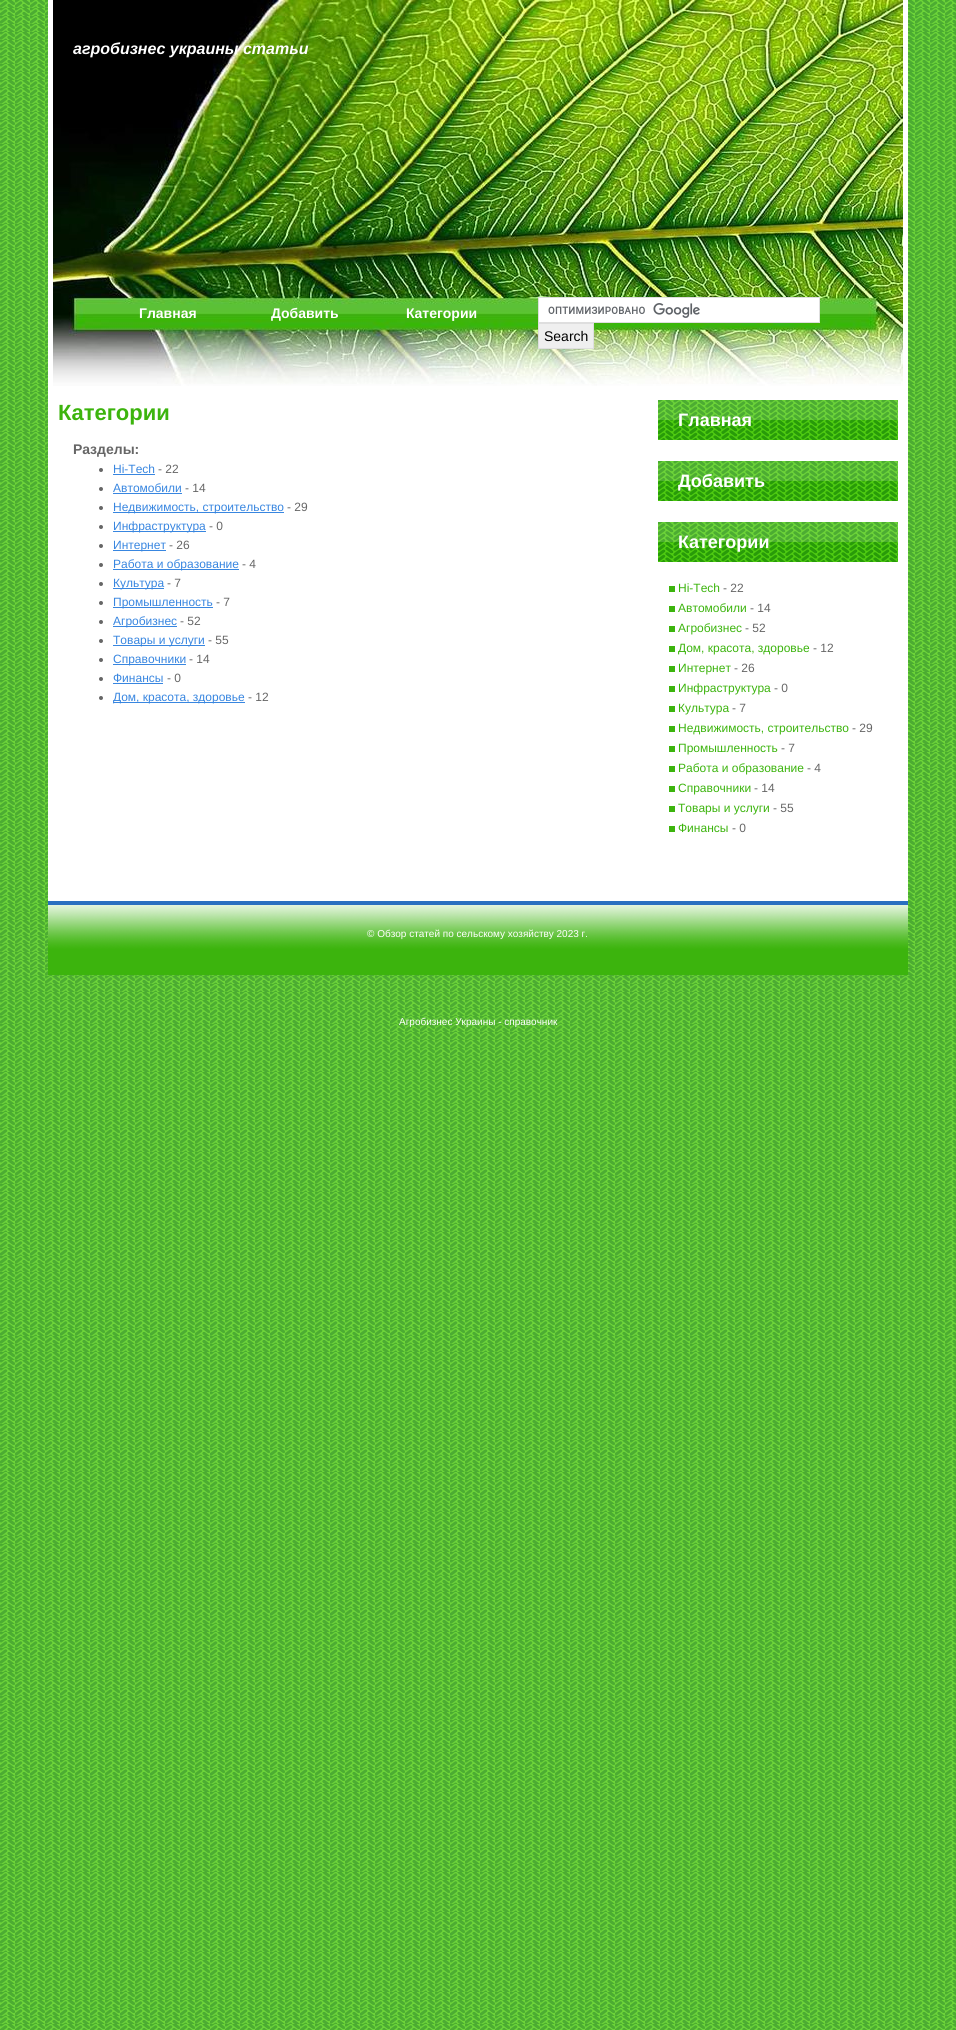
#include <cairo.h>
#include <math.h>
#include <stddef.h>


static void picture(cairo_t *cr, const char *path, double x, double y, double w, double h) {
    cairo_surface_t *image = cairo_image_surface_create_from_png(path);
    cairo_save(cr);
    cairo_set_source_surface(cr, image, x, y);
    cairo_rectangle(cr, x, y, w, h);
    cairo_fill(cr);
    cairo_restore(cr);
    cairo_surface_destroy(image);
}

int main(void) {
    cairo_surface_t *surface = cairo_image_surface_create(CAIRO_FORMAT_RGB24, 956, 2030);
    cairo_t *cr = cairo_create(surface);
    cairo_font_options_t *options = cairo_font_options_create();
    cairo_font_options_set_hint_metrics(options, CAIRO_HINT_METRICS_OFF);
    cairo_font_options_set_hint_style(options, CAIRO_HINT_STYLE_NONE);
    cairo_set_font_options(cr, options);
    cairo_set_miter_limit(cr, 4);
    cairo_set_source_rgb(cr, 1, 1, 1);
    cairo_paint(cr);
    picture(cr, "img1.png", 0, 0, 956, 2030);
    cairo_set_source_rgb(cr, 1, 1, 1);
    cairo_rectangle(cr, 48, 0, 860, 901);
    cairo_fill(cr);
    picture(cr, "img2.png", 53, 0, 850, 386);
    cairo_select_font_face(cr, "Liberation Sans", CAIRO_FONT_SLANT_ITALIC, CAIRO_FONT_WEIGHT_BOLD);
    cairo_set_font_size(cr, 16);
    cairo_move_to(cr, 73, 54);
    cairo_show_text(cr, "агробизнес украины статьи");
    cairo_select_font_face(cr, "Liberation Sans", CAIRO_FONT_SLANT_NORMAL, CAIRO_FONT_WEIGHT_BOLD);
    cairo_set_font_size(cr, 14);
    cairo_move_to(cr, 139, 318);
    cairo_show_text(cr, "Главная");
    cairo_move_to(cr, 271, 318);
    cairo_show_text(cr, "Добавить");
    cairo_move_to(cr, 406, 318);
    cairo_show_text(cr, "Категории");
    cairo_rectangle(cr, 539, 298, 280, 24);
    cairo_fill(cr);
    picture(cr, "img3.png", 548, 303, 152, 15);
    cairo_rectangle(cr, 538.5, 297.5, 281, 25);
    cairo_set_source_rgb(cr, 0.871, 0.871, 0.871);
    cairo_set_line_width(cr, 1);
    cairo_stroke(cr);
    cairo_set_source_rgb(cr, 0.937, 0.937, 0.937);
    cairo_rectangle(cr, 538.5, 323.5, 55, 25);
    cairo_fill_preserve(cr);
    cairo_set_source_rgb(cr, 0.871, 0.871, 0.871);
    cairo_stroke(cr);
    cairo_select_font_face(cr, "Liberation Sans", CAIRO_FONT_SLANT_NORMAL, CAIRO_FONT_WEIGHT_NORMAL);
    cairo_set_source_rgb(cr, 0, 0, 0);
    cairo_move_to(cr, 544, 341);
    cairo_show_text(cr, "Search");
    cairo_select_font_face(cr, "Liberation Sans", CAIRO_FONT_SLANT_NORMAL, CAIRO_FONT_WEIGHT_BOLD);
    cairo_set_font_size(cr, 22);
    cairo_set_source_rgb(cr, 0.235, 0.706, 0.051);
    cairo_move_to(cr, 58, 420);
    cairo_show_text(cr, "Категории");
    cairo_set_font_size(cr, 14);
    cairo_set_source_rgb(cr, 0.4, 0.4, 0.4);
    cairo_move_to(cr, 73, 454);
    cairo_show_text(cr, "Разделы:");
    cairo_new_path(cr);
    cairo_arc(cr, 101, 470, 2, 0, 2 * M_PI);
    cairo_fill(cr);
    cairo_select_font_face(cr, "Liberation Sans", CAIRO_FONT_SLANT_NORMAL, CAIRO_FONT_WEIGHT_NORMAL);
    cairo_set_font_size(cr, 12);
    cairo_set_source_rgb(cr, 0.22, 0.525, 0.878);
    cairo_move_to(cr, 113, 473);
    cairo_show_text(cr, "Hi-Tech");
    cairo_rectangle(cr, 113, 474, 42, 1);
    cairo_fill(cr);
    cairo_set_source_rgb(cr, 0.4, 0.4, 0.4);
    cairo_move_to(cr, 158, 473);
    cairo_show_text(cr, "- 22");
    cairo_new_path(cr);
    cairo_arc(cr, 101, 489, 2, 0, 2 * M_PI);
    cairo_fill(cr);
    cairo_set_source_rgb(cr, 0.22, 0.525, 0.878);
    cairo_move_to(cr, 113, 492);
    cairo_show_text(cr, "Автомобили");
    cairo_rectangle(cr, 113, 493, 69, 1);
    cairo_fill(cr);
    cairo_set_source_rgb(cr, 0.4, 0.4, 0.4);
    cairo_move_to(cr, 185, 492);
    cairo_show_text(cr, "- 14");
    cairo_new_path(cr);
    cairo_arc(cr, 101, 508, 2, 0, 2 * M_PI);
    cairo_fill(cr);
    cairo_set_source_rgb(cr, 0.22, 0.525, 0.878);
    cairo_rectangle(cr, 113, 512, 171, 1);
    cairo_fill(cr);
    cairo_move_to(cr, 113, 511);
    cairo_show_text(cr, "Недвижимость, строительство");
    cairo_set_source_rgb(cr, 0.4, 0.4, 0.4);
    cairo_move_to(cr, 287, 511);
    cairo_show_text(cr, "- 29");
    cairo_new_path(cr);
    cairo_arc(cr, 101, 527, 2, 0, 2 * M_PI);
    cairo_fill(cr);
    cairo_set_source_rgb(cr, 0.22, 0.525, 0.878);
    cairo_rectangle(cr, 113, 531, 93, 1);
    cairo_fill(cr);
    cairo_move_to(cr, 113, 530);
    cairo_show_text(cr, "Инфраструктура");
    cairo_set_source_rgb(cr, 0.4, 0.4, 0.4);
    cairo_move_to(cr, 209, 530);
    cairo_show_text(cr, "- 0");
    cairo_new_path(cr);
    cairo_arc(cr, 101, 546, 2, 0, 2 * M_PI);
    cairo_fill(cr);
    cairo_set_source_rgb(cr, 0.22, 0.525, 0.878);
    cairo_rectangle(cr, 113, 550, 53, 1);
    cairo_fill(cr);
    cairo_move_to(cr, 113, 549);
    cairo_show_text(cr, "Интернет");
    cairo_set_source_rgb(cr, 0.4, 0.4, 0.4);
    cairo_move_to(cr, 169, 549);
    cairo_show_text(cr, "- 26");
    cairo_new_path(cr);
    cairo_arc(cr, 101, 565, 2, 0, 2 * M_PI);
    cairo_fill(cr);
    cairo_set_source_rgb(cr, 0.22, 0.525, 0.878);
    cairo_rectangle(cr, 113, 569, 126, 1);
    cairo_fill(cr);
    cairo_move_to(cr, 113, 568);
    cairo_show_text(cr, "Работа и образование");
    cairo_set_source_rgb(cr, 0.4, 0.4, 0.4);
    cairo_move_to(cr, 242, 568);
    cairo_show_text(cr, "- 4");
    cairo_new_path(cr);
    cairo_arc(cr, 101, 584, 2, 0, 2 * M_PI);
    cairo_fill(cr);
    cairo_set_source_rgb(cr, 0.22, 0.525, 0.878);
    cairo_rectangle(cr, 113, 588, 51, 1);
    cairo_fill(cr);
    cairo_move_to(cr, 113, 587);
    cairo_show_text(cr, "Культура");
    cairo_set_source_rgb(cr, 0.4, 0.4, 0.4);
    cairo_move_to(cr, 167, 587);
    cairo_show_text(cr, "- 7");
    cairo_new_path(cr);
    cairo_arc(cr, 101, 603, 2, 0, 2 * M_PI);
    cairo_fill(cr);
    cairo_set_source_rgb(cr, 0.22, 0.525, 0.878);
    cairo_rectangle(cr, 113, 607, 100, 1);
    cairo_fill(cr);
    cairo_move_to(cr, 113, 606);
    cairo_show_text(cr, "Промышленность");
    cairo_set_source_rgb(cr, 0.4, 0.4, 0.4);
    cairo_move_to(cr, 216, 606);
    cairo_show_text(cr, "- 7");
    cairo_new_path(cr);
    cairo_arc(cr, 101, 622, 2, 0, 2 * M_PI);
    cairo_fill(cr);
    cairo_set_source_rgb(cr, 0.22, 0.525, 0.878);
    cairo_rectangle(cr, 113, 626, 64, 1);
    cairo_fill(cr);
    cairo_move_to(cr, 113, 625);
    cairo_show_text(cr, "Агробизнес");
    cairo_set_source_rgb(cr, 0.4, 0.4, 0.4);
    cairo_move_to(cr, 180, 625);
    cairo_show_text(cr, "- 52");
    cairo_new_path(cr);
    cairo_arc(cr, 101, 641, 2, 0, 2 * M_PI);
    cairo_fill(cr);
    cairo_set_source_rgb(cr, 0.22, 0.525, 0.878);
    cairo_rectangle(cr, 113, 645, 92, 1);
    cairo_fill(cr);
    cairo_move_to(cr, 113, 644);
    cairo_show_text(cr, "Товары и услуги");
    cairo_set_source_rgb(cr, 0.4, 0.4, 0.4);
    cairo_move_to(cr, 208, 644);
    cairo_show_text(cr, "- 55");
    cairo_new_path(cr);
    cairo_arc(cr, 101, 660, 2, 0, 2 * M_PI);
    cairo_fill(cr);
    cairo_set_source_rgb(cr, 0.22, 0.525, 0.878);
    cairo_rectangle(cr, 113, 664, 73, 1);
    cairo_fill(cr);
    cairo_move_to(cr, 113, 663);
    cairo_show_text(cr, "Справочники");
    cairo_set_source_rgb(cr, 0.4, 0.4, 0.4);
    cairo_move_to(cr, 189, 663);
    cairo_show_text(cr, "- 14");
    cairo_new_path(cr);
    cairo_arc(cr, 101, 679, 2, 0, 2 * M_PI);
    cairo_fill(cr);
    cairo_set_source_rgb(cr, 0.22, 0.525, 0.878);
    cairo_move_to(cr, 113, 682);
    cairo_show_text(cr, "Финансы");
    cairo_rectangle(cr, 113, 683, 50, 1);
    cairo_fill(cr);
    cairo_set_source_rgb(cr, 0.4, 0.4, 0.4);
    cairo_move_to(cr, 167, 682);
    cairo_show_text(cr, "- 0");
    cairo_new_path(cr);
    cairo_arc(cr, 101, 698, 2, 0, 2 * M_PI);
    cairo_fill(cr);
    cairo_set_source_rgb(cr, 0.22, 0.525, 0.878);
    cairo_rectangle(cr, 113, 702, 132, 1);
    cairo_fill(cr);
    cairo_move_to(cr, 113, 701);
    cairo_show_text(cr, "Дом, красота, здоровье");
    cairo_set_source_rgb(cr, 0.4, 0.4, 0.4);
    cairo_move_to(cr, 248, 701);
    cairo_show_text(cr, "- 12");
    picture(cr, "img4.png", 658, 400, 240, 40);
    cairo_select_font_face(cr, "Liberation Sans", CAIRO_FONT_SLANT_NORMAL, CAIRO_FONT_WEIGHT_BOLD);
    cairo_set_font_size(cr, 18);
    cairo_set_source_rgb(cr, 1, 1, 1);
    cairo_move_to(cr, 678, 426);
    cairo_show_text(cr, "Главная");
    picture(cr, "img4.png", 658, 461, 240, 40);
    cairo_move_to(cr, 678, 487);
    cairo_show_text(cr, "Добавить");
    picture(cr, "img4.png", 658, 522, 240, 40);
    cairo_move_to(cr, 678, 548);
    cairo_show_text(cr, "Категории");
    cairo_select_font_face(cr, "Liberation Sans", CAIRO_FONT_SLANT_NORMAL, CAIRO_FONT_WEIGHT_NORMAL);
    cairo_set_font_size(cr, 12);
    cairo_set_source_rgb(cr, 0.235, 0.706, 0.051);
    cairo_move_to(cr, 678, 592);
    cairo_show_text(cr, "Hi-Tech");
    cairo_rectangle(cr, 669, 586, 6, 6);
    cairo_fill(cr);
    cairo_set_source_rgb(cr, 0.4, 0.4, 0.4);
    cairo_move_to(cr, 723, 592);
    cairo_show_text(cr, "- 22");
    cairo_set_source_rgb(cr, 0.235, 0.706, 0.051);
    cairo_move_to(cr, 678, 612);
    cairo_show_text(cr, "Автомобили");
    cairo_rectangle(cr, 669, 606, 6, 6);
    cairo_fill(cr);
    cairo_set_source_rgb(cr, 0.4, 0.4, 0.4);
    cairo_move_to(cr, 750, 612);
    cairo_show_text(cr, "- 14");
    cairo_set_source_rgb(cr, 0.235, 0.706, 0.051);
    cairo_move_to(cr, 678, 632);
    cairo_show_text(cr, "Агробизнес");
    cairo_rectangle(cr, 669, 626, 6, 6);
    cairo_fill(cr);
    cairo_set_source_rgb(cr, 0.4, 0.4, 0.4);
    cairo_move_to(cr, 745, 632);
    cairo_show_text(cr, "- 52");
    cairo_set_source_rgb(cr, 0.235, 0.706, 0.051);
    cairo_move_to(cr, 678, 652);
    cairo_show_text(cr, "Дом, красота, здоровье");
    cairo_rectangle(cr, 669, 646, 6, 6);
    cairo_fill(cr);
    cairo_set_source_rgb(cr, 0.4, 0.4, 0.4);
    cairo_move_to(cr, 813, 652);
    cairo_show_text(cr, "- 12");
    cairo_set_source_rgb(cr, 0.235, 0.706, 0.051);
    cairo_move_to(cr, 678, 672);
    cairo_show_text(cr, "Интернет");
    cairo_rectangle(cr, 669, 666, 6, 6);
    cairo_fill(cr);
    cairo_set_source_rgb(cr, 0.4, 0.4, 0.4);
    cairo_move_to(cr, 734, 672);
    cairo_show_text(cr, "- 26");
    cairo_set_source_rgb(cr, 0.235, 0.706, 0.051);
    cairo_move_to(cr, 678, 692);
    cairo_show_text(cr, "Инфраструктура");
    cairo_rectangle(cr, 669, 686, 6, 6);
    cairo_fill(cr);
    cairo_set_source_rgb(cr, 0.4, 0.4, 0.4);
    cairo_move_to(cr, 774, 692);
    cairo_show_text(cr, "- 0");
    cairo_set_source_rgb(cr, 0.235, 0.706, 0.051);
    cairo_move_to(cr, 678, 712);
    cairo_show_text(cr, "Культура");
    cairo_rectangle(cr, 669, 706, 6, 6);
    cairo_fill(cr);
    cairo_set_source_rgb(cr, 0.4, 0.4, 0.4);
    cairo_move_to(cr, 732, 712);
    cairo_show_text(cr, "- 7");
    cairo_set_source_rgb(cr, 0.235, 0.706, 0.051);
    cairo_move_to(cr, 678, 732);
    cairo_show_text(cr, "Недвижимость, строительство");
    cairo_rectangle(cr, 669, 726, 6, 6);
    cairo_fill(cr);
    cairo_set_source_rgb(cr, 0.4, 0.4, 0.4);
    cairo_move_to(cr, 852, 732);
    cairo_show_text(cr, "- 29");
    cairo_set_source_rgb(cr, 0.235, 0.706, 0.051);
    cairo_move_to(cr, 678, 752);
    cairo_show_text(cr, "Промышленность");
    cairo_rectangle(cr, 669, 746, 6, 6);
    cairo_fill(cr);
    cairo_set_source_rgb(cr, 0.4, 0.4, 0.4);
    cairo_move_to(cr, 781, 752);
    cairo_show_text(cr, "- 7");
    cairo_set_source_rgb(cr, 0.235, 0.706, 0.051);
    cairo_move_to(cr, 678, 772);
    cairo_show_text(cr, "Работа и образование");
    cairo_rectangle(cr, 669, 766, 6, 6);
    cairo_fill(cr);
    cairo_set_source_rgb(cr, 0.4, 0.4, 0.4);
    cairo_move_to(cr, 807, 772);
    cairo_show_text(cr, "- 4");
    cairo_set_source_rgb(cr, 0.235, 0.706, 0.051);
    cairo_move_to(cr, 678, 792);
    cairo_show_text(cr, "Справочники");
    cairo_rectangle(cr, 669, 786, 6, 6);
    cairo_fill(cr);
    cairo_set_source_rgb(cr, 0.4, 0.4, 0.4);
    cairo_move_to(cr, 754, 792);
    cairo_show_text(cr, "- 14");
    cairo_set_source_rgb(cr, 0.235, 0.706, 0.051);
    cairo_move_to(cr, 678, 812);
    cairo_show_text(cr, "Товары и услуги");
    cairo_rectangle(cr, 669, 806, 6, 6);
    cairo_fill(cr);
    cairo_set_source_rgb(cr, 0.4, 0.4, 0.4);
    cairo_move_to(cr, 773, 812);
    cairo_show_text(cr, "- 55");
    cairo_set_source_rgb(cr, 0.235, 0.706, 0.051);
    cairo_move_to(cr, 678, 832);
    cairo_show_text(cr, "Финансы");
    cairo_rectangle(cr, 669, 826, 6, 6);
    cairo_fill(cr);
    cairo_set_source_rgb(cr, 0.4, 0.4, 0.4);
    cairo_move_to(cr, 732, 832);
    cairo_show_text(cr, "- 0");
    picture(cr, "img5.png", 48, 905, 860, 70);
    cairo_set_source_rgb(cr, 0.161, 0.435, 0.753);
    cairo_rectangle(cr, 48, 901, 860, 4);
    cairo_fill(cr);
    cairo_set_font_size(cr, 10);
    cairo_set_source_rgb(cr, 1, 1, 1);
    cairo_move_to(cr, 367, 937);
    cairo_show_text(cr, "© Обзор статей по сельскому хозяйству 2023 г.");
    cairo_move_to(cr, 399, 1025);
    cairo_show_text(cr, "Агробизнес Украины - справочник");
    cairo_surface_write_to_png(surface, "page.png");
    cairo_font_options_destroy(options);
    cairo_destroy(cr);
    cairo_surface_destroy(surface);
    return 0;
}
